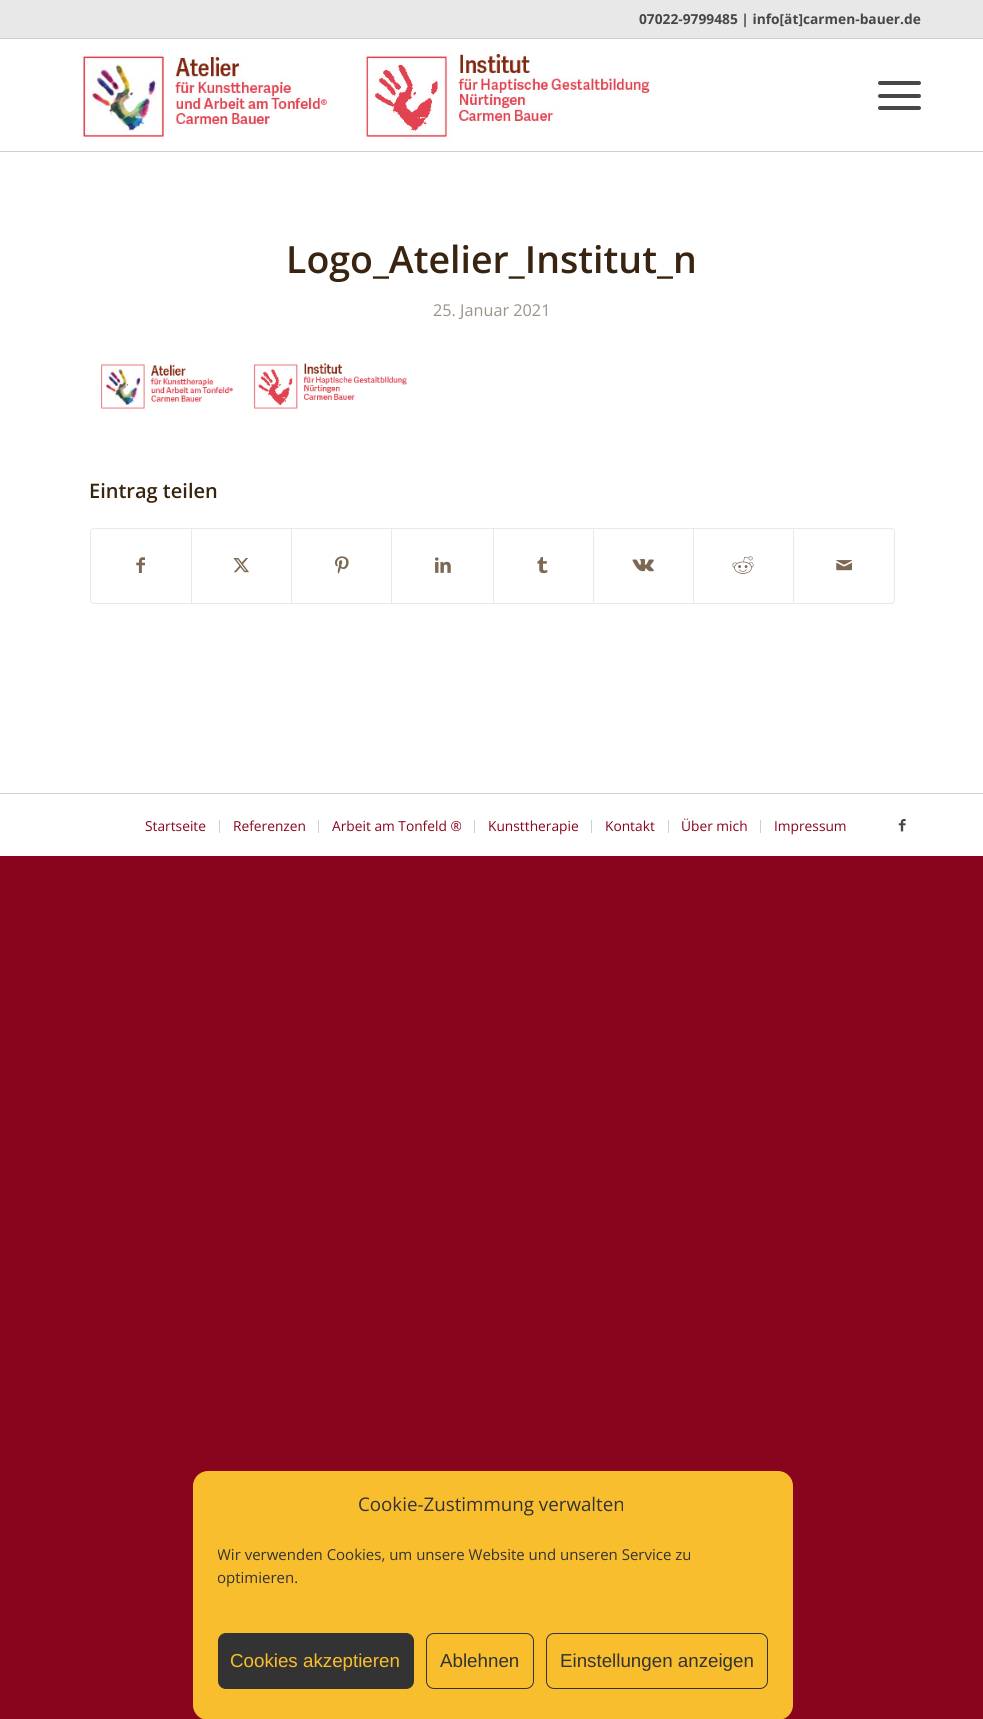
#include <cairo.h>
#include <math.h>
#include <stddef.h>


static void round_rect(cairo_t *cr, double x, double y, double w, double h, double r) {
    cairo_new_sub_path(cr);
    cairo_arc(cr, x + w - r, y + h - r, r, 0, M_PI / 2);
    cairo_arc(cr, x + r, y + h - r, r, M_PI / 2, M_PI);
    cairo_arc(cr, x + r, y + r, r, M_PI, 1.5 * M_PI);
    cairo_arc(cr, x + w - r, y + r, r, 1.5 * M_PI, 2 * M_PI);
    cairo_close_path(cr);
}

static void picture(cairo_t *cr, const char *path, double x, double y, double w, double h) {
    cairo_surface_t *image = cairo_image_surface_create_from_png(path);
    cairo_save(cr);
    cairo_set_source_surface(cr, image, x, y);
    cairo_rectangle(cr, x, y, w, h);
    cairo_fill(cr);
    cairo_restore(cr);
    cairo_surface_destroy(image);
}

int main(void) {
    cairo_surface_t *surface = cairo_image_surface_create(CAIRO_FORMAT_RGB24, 983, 1719);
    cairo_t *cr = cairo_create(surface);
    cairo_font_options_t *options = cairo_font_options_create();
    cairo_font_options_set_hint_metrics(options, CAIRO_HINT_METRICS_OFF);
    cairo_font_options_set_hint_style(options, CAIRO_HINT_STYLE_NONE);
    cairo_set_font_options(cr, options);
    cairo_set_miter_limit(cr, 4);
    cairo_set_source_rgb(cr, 0.533, 0.02, 0.114);
    cairo_paint(cr);
    cairo_set_source_rgb(cr, 0.91, 0.91, 0.91);
    cairo_rectangle(cr, 0, 0, 983, 38);
    cairo_fill(cr);
    cairo_set_source_rgb(cr, 0.812, 0.812, 0.812);
    cairo_rectangle(cr, 0, 38, 983, 1);
    cairo_fill(cr);
    cairo_select_font_face(cr, "Open Sans", CAIRO_FONT_SLANT_NORMAL, CAIRO_FONT_WEIGHT_BOLD);
    cairo_set_font_size(cr, 13.75);
    cairo_set_source_rgb(cr, 0.278, 0.278, 0.278);
    cairo_move_to(cr, 639, 24);
    cairo_show_text(cr, "07022-9799485 | info[ät]carmen-bauer.de");
    cairo_set_source_rgb(cr, 1, 1, 1);
    cairo_rectangle(cr, 0, 39, 983, 817);
    cairo_fill(cr);
    cairo_set_source_rgb(cr, 0.812, 0.812, 0.812);
    cairo_rectangle(cr, 0, 151, 983, 1);
    cairo_fill(cr);
    picture(cr, "img1.png", 82, 51, 568, 90);
    cairo_set_source_rgb(cr, 0.278, 0.278, 0.278);
    round_rect(cr, 878, 94, 43, 4, 2);
    cairo_fill(cr);
    round_rect(cr, 878, 81, 43, 4, 2);
    cairo_fill(cr);
    round_rect(cr, 878, 106, 43, 4, 2);
    cairo_fill(cr);
    cairo_select_font_face(cr, "Open Sans SemiBold", CAIRO_FONT_SLANT_NORMAL, CAIRO_FONT_WEIGHT_NORMAL);
    cairo_set_font_size(cr, 37.5);
    cairo_set_source_rgb(cr, 0.22, 0.141, 0.063);
    cairo_move_to(cr, 286, 273);
    cairo_show_text(cr, "Logo_Atelier_Institut_n");
    cairo_select_font_face(cr, "Open Sans", CAIRO_FONT_SLANT_NORMAL, CAIRO_FONT_WEIGHT_NORMAL);
    cairo_set_font_size(cr, 16.25);
    cairo_set_source_rgb(cr, 0.612, 0.573, 0.533);
    cairo_move_to(cr, 433, 316);
    cairo_show_text(cr, "25. Januar 2021");
    picture(cr, "img2.png", 101, 362, 306, 48);
    cairo_select_font_face(cr, "Open Sans SemiBold", CAIRO_FONT_SLANT_NORMAL, CAIRO_FONT_WEIGHT_NORMAL);
    cairo_set_font_size(cr, 20);
    cairo_set_source_rgb(cr, 0.22, 0.141, 0.063);
    cairo_move_to(cr, 89, 498);
    cairo_show_text(cr, "Eintrag teilen");
    round_rect(cr, 90.5, 528.5, 804, 75, 3.5);
    cairo_set_source_rgb(cr, 0.922, 0.91, 0.886);
    cairo_set_line_width(cr, 1);
    cairo_stroke(cr);
    picture(cr, "img3.png", 136, 557, 9, 16);
    cairo_rectangle(cr, 191, 529, 1, 74);
    cairo_fill(cr);
    picture(cr, "img4.png", 233, 558, 16, 15);
    cairo_rectangle(cr, 291, 529, 1, 74);
    cairo_fill(cr);
    picture(cr, "img5.png", 335, 556, 14, 18);
    cairo_rectangle(cr, 391, 529, 1, 74);
    cairo_fill(cr);
    picture(cr, "img6.png", 435, 557, 16, 16);
    cairo_rectangle(cr, 493, 529, 1, 74);
    cairo_fill(cr);
    picture(cr, "img7.png", 537, 557, 11, 17);
    cairo_rectangle(cr, 593, 529, 1, 74);
    cairo_fill(cr);
    picture(cr, "img8.png", 632, 559, 22, 13);
    cairo_rectangle(cr, 693, 529, 1, 74);
    cairo_fill(cr);
    picture(cr, "img9.png", 732, 556, 22, 18);
    cairo_rectangle(cr, 793, 529, 1, 74);
    cairo_fill(cr);
    picture(cr, "img10.png", 836, 560, 16, 11);
    cairo_set_source_rgb(cr, 0.812, 0.812, 0.812);
    cairo_rectangle(cr, 0, 793, 983, 1);
    cairo_fill(cr);
    cairo_select_font_face(cr, "Open Sans", CAIRO_FONT_SLANT_NORMAL, CAIRO_FONT_WEIGHT_NORMAL);
    cairo_set_font_size(cr, 13.75);
    cairo_set_source_rgb(cr, 0.533, 0.02, 0.114);
    cairo_move_to(cr, 145, 831);
    cairo_show_text(cr, "Startseite");
    cairo_set_source_rgb(cr, 0.812, 0.812, 0.812);
    cairo_rectangle(cr, 219, 820, 1, 13);
    cairo_fill(cr);
    cairo_set_source_rgb(cr, 0.533, 0.02, 0.114);
    cairo_move_to(cr, 233, 831);
    cairo_show_text(cr, "Referenzen");
    cairo_set_source_rgb(cr, 0.812, 0.812, 0.812);
    cairo_rectangle(cr, 318, 820, 1, 13);
    cairo_fill(cr);
    cairo_set_source_rgb(cr, 0.533, 0.02, 0.114);
    cairo_move_to(cr, 332, 831);
    cairo_show_text(cr, "Arbeit am Tonfeld ®");
    cairo_set_source_rgb(cr, 0.812, 0.812, 0.812);
    cairo_rectangle(cr, 474, 820, 1, 13);
    cairo_fill(cr);
    cairo_set_source_rgb(cr, 0.533, 0.02, 0.114);
    cairo_move_to(cr, 488, 831);
    cairo_show_text(cr, "Kunsttherapie");
    cairo_set_source_rgb(cr, 0.812, 0.812, 0.812);
    cairo_rectangle(cr, 591, 820, 1, 13);
    cairo_fill(cr);
    cairo_set_source_rgb(cr, 0.533, 0.02, 0.114);
    cairo_move_to(cr, 605, 831);
    cairo_show_text(cr, "Kontakt");
    cairo_set_source_rgb(cr, 0.812, 0.812, 0.812);
    cairo_rectangle(cr, 668, 820, 1, 13);
    cairo_fill(cr);
    cairo_set_source_rgb(cr, 0.533, 0.02, 0.114);
    cairo_move_to(cr, 681, 831);
    cairo_show_text(cr, "Über mich");
    cairo_set_source_rgb(cr, 0.812, 0.812, 0.812);
    cairo_rectangle(cr, 760, 820, 1, 13);
    cairo_fill(cr);
    cairo_set_source_rgb(cr, 0.533, 0.02, 0.114);
    cairo_move_to(cr, 774, 831);
    cairo_show_text(cr, "Impressum");
    picture(cr, "img11.png", 898, 819, 8, 13);
    cairo_set_source_rgb(cr, 0.973, 0.745, 0.18);
    round_rect(cr, 193, 1471, 600, 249, 15);
    cairo_fill(cr);
    cairo_set_font_size(cr, 18.75);
    cairo_set_source_rgb(cr, 0.2, 0.2, 0.2);
    cairo_move_to(cr, 358, 1511);
    cairo_show_text(cr, "Cookie-Zustimmung verwalten");
    cairo_save(cr);
    cairo_rectangle(cr, 218, 1544, 550, 51);
    cairo_clip(cr);
    cairo_set_font_size(cr, 15);
    cairo_move_to(cr, 217, 1560);
    cairo_show_text(cr, "Wir verwenden Cookies, um unsere Website und unseren Service zu");
    cairo_move_to(cr, 217, 1583);
    cairo_show_text(cr, "optimieren.");
    cairo_restore(cr);
    round_rect(cr, 218.5, 1633.5, 195, 55, 7.5);
    cairo_fill_preserve(cr);
    cairo_stroke(cr);
    cairo_select_font_face(cr, "Liberation Sans", CAIRO_FONT_SLANT_NORMAL, CAIRO_FONT_WEIGHT_NORMAL);
    cairo_set_source_rgb(cr, 0.973, 0.745, 0.18);
    cairo_move_to(cr, 230, 1667);
    cairo_show_text(cr, "Cookies akzeptieren");
    round_rect(cr, 426.5, 1633.5, 107, 55, 7.5);
    cairo_set_source_rgb(cr, 0.2, 0.2, 0.2);
    cairo_stroke(cr);
    cairo_move_to(cr, 440, 1667);
    cairo_show_text(cr, "Ablehnen");
    round_rect(cr, 546.5, 1633.5, 221, 55, 7.5);
    cairo_stroke(cr);
    cairo_move_to(cr, 560, 1667);
    cairo_show_text(cr, "Einstellungen anzeigen");
    cairo_surface_write_to_png(surface, "page.png");
    cairo_font_options_destroy(options);
    cairo_destroy(cr);
    cairo_surface_destroy(surface);
    return 0;
}
